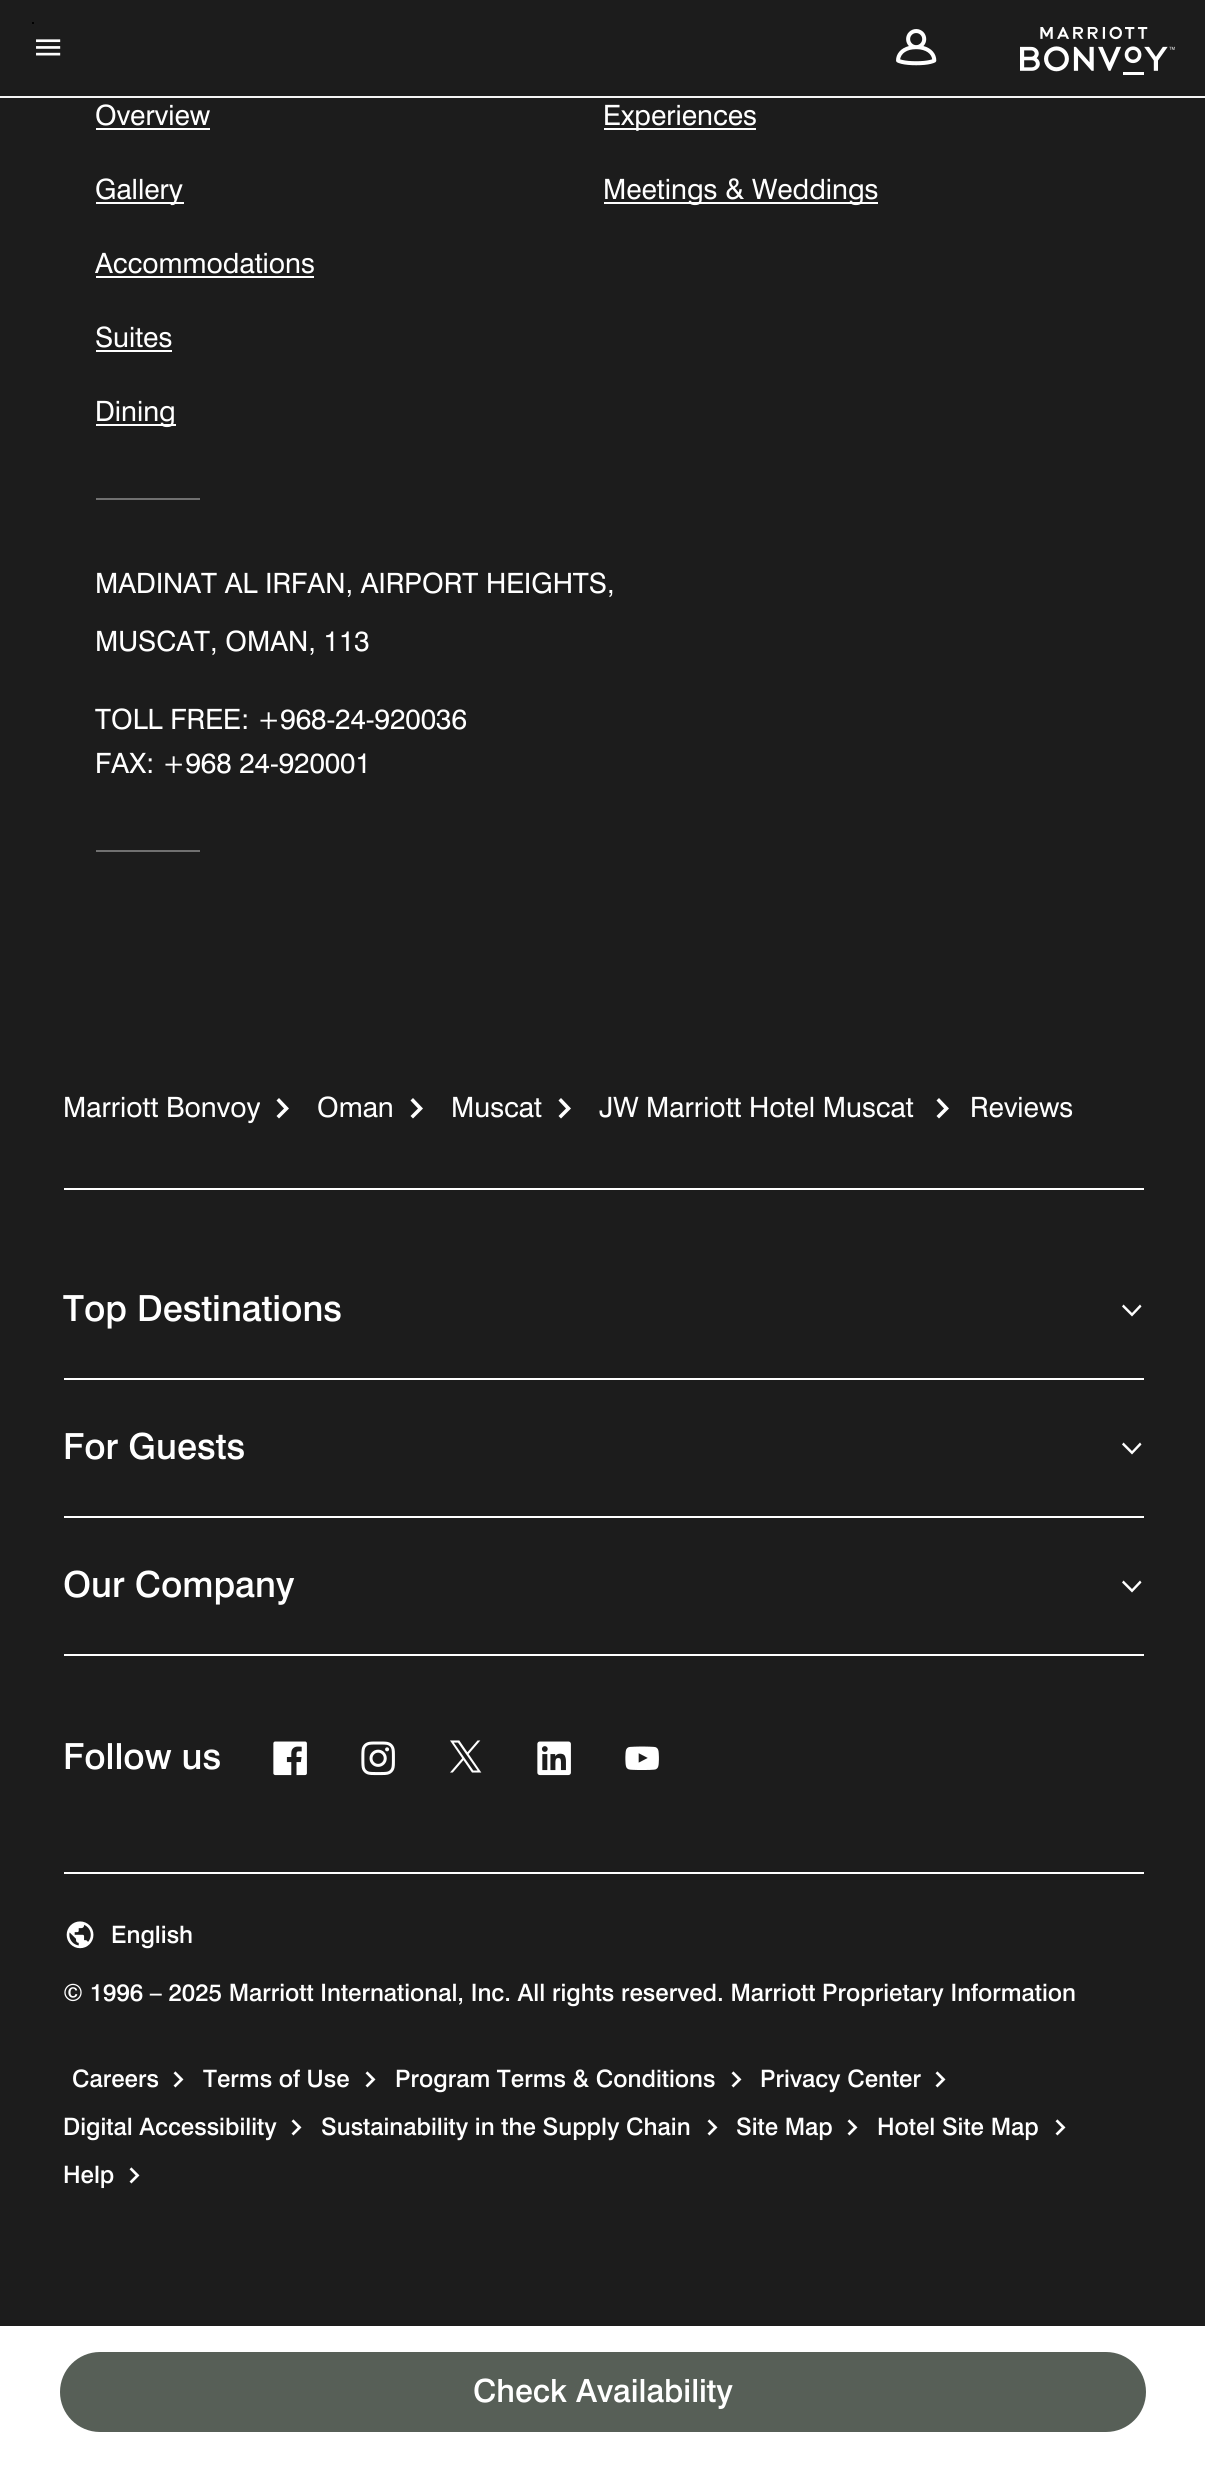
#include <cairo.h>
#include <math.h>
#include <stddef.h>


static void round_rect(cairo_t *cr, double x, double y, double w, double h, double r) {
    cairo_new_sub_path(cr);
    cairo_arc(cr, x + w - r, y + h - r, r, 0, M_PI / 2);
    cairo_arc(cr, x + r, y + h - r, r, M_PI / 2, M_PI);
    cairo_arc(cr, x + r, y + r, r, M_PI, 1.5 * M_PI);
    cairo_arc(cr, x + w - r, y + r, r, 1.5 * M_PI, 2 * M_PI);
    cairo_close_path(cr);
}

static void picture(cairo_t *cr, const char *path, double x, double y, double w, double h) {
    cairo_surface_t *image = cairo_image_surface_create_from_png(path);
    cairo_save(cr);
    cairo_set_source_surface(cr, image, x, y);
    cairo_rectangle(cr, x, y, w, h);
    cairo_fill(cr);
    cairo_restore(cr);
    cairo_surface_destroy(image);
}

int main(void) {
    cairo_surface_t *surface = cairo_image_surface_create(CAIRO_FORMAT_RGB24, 1205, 2480);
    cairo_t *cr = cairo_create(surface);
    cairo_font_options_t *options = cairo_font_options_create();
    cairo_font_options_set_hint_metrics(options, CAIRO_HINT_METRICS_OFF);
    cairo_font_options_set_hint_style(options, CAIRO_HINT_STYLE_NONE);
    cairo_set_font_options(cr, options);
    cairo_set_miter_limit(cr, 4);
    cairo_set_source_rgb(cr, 1, 1, 1);
    cairo_paint(cr);
    cairo_set_source_rgb(cr, 0.11, 0.11, 0.11);
    cairo_rectangle(cr, 0, 98, 1205, 2228);
    cairo_fill(cr);
    cairo_select_font_face(cr, "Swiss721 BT", CAIRO_FONT_SLANT_NORMAL, CAIRO_FONT_WEIGHT_NORMAL);
    cairo_set_font_size(cr, 28);
    cairo_set_source_rgb(cr, 1, 1, 1);
    cairo_move_to(cr, 95, 125);
    cairo_show_text(cr, "Overview");
    cairo_rectangle(cr, 96, 128, 114, 2);
    cairo_fill(cr);
    cairo_rectangle(cr, 604, 128, 152, 2);
    cairo_fill(cr);
    cairo_move_to(cr, 603, 125);
    cairo_show_text(cr, "Experiences");
    cairo_rectangle(cr, 96, 202, 88, 2);
    cairo_fill(cr);
    cairo_move_to(cr, 95, 199);
    cairo_show_text(cr, "Gallery");
    cairo_rectangle(cr, 604, 202, 274, 2);
    cairo_fill(cr);
    cairo_move_to(cr, 603, 199);
    cairo_show_text(cr, "Meetings & Weddings");
    cairo_move_to(cr, 95, 273);
    cairo_show_text(cr, "Accommodations");
    cairo_rectangle(cr, 96, 276, 218, 2);
    cairo_fill(cr);
    cairo_move_to(cr, 95, 347);
    cairo_show_text(cr, "Suites");
    cairo_rectangle(cr, 96, 350, 76, 2);
    cairo_fill(cr);
    cairo_rectangle(cr, 96, 424, 80, 2);
    cairo_fill(cr);
    cairo_move_to(cr, 95, 421);
    cairo_show_text(cr, "Dining");
    cairo_set_source_rgb(cr, 0.439, 0.439, 0.439);
    cairo_rectangle(cr, 96, 498, 104, 2);
    cairo_fill(cr);
    cairo_set_source_rgb(cr, 1, 1, 1);
    cairo_move_to(cr, 95, 593);
    cairo_show_text(cr, "MADINAT AL IRFAN, AIRPORT HEIGHTS,");
    cairo_move_to(cr, 95, 651);
    cairo_show_text(cr, "MUSCAT, OMAN, 113");
    cairo_move_to(cr, 95, 729);
    cairo_show_text(cr, "TOLL FREE: +968-24-920036");
    cairo_move_to(cr, 95, 773);
    cairo_show_text(cr, "FAX: +968 24-920001");
    cairo_set_source_rgb(cr, 0.439, 0.439, 0.439);
    cairo_rectangle(cr, 96, 850, 104, 2);
    cairo_fill(cr);
    cairo_set_source_rgb(cr, 1, 1, 1);
    cairo_rectangle(cr, 64, 1188, 1080, 2);
    cairo_fill(cr);
    cairo_move_to(cr, 63, 1117);
    cairo_show_text(cr, "Marriott Bonvoy");
    cairo_new_path(cr);
    cairo_move_to(cr, 276.5, 1116);
    cairo_line_to(cr, 284, 1108.5);
    cairo_line_to(cr, 276.5, 1100.5);
    cairo_line_to(cr, 279, 1098);
    cairo_line_to(cr, 289, 1108.5);
    cairo_line_to(cr, 279, 1118.5);
    cairo_close_path(cr);
    cairo_fill(cr);
    cairo_move_to(cr, 317, 1117);
    cairo_show_text(cr, "Oman");
    cairo_new_path(cr);
    cairo_move_to(cr, 410.5, 1116);
    cairo_line_to(cr, 418, 1108.5);
    cairo_line_to(cr, 410.5, 1100.5);
    cairo_line_to(cr, 413, 1098);
    cairo_line_to(cr, 423, 1108.5);
    cairo_line_to(cr, 413, 1118.5);
    cairo_close_path(cr);
    cairo_fill(cr);
    cairo_move_to(cr, 451, 1117);
    cairo_show_text(cr, "Muscat");
    cairo_new_path(cr);
    cairo_move_to(cr, 558.5, 1116);
    cairo_line_to(cr, 566, 1108.5);
    cairo_line_to(cr, 558.5, 1100.5);
    cairo_line_to(cr, 561, 1098);
    cairo_line_to(cr, 571, 1108.5);
    cairo_line_to(cr, 561, 1118.5);
    cairo_close_path(cr);
    cairo_fill(cr);
    cairo_move_to(cr, 599, 1117);
    cairo_show_text(cr, "JW Marriott Hotel Muscat");
    cairo_new_path(cr);
    cairo_move_to(cr, 936.5, 1116);
    cairo_line_to(cr, 944, 1108.5);
    cairo_line_to(cr, 936.5, 1100.5);
    cairo_line_to(cr, 939, 1098);
    cairo_line_to(cr, 949, 1108.5);
    cairo_line_to(cr, 939, 1118.5);
    cairo_close_path(cr);
    cairo_fill(cr);
    cairo_move_to(cr, 970, 1117);
    cairo_show_text(cr, "Reviews");
    cairo_rectangle(cr, 64, 1378, 1080, 2);
    cairo_fill(cr);
    cairo_select_font_face(cr, "Swiss721 BT Medium", CAIRO_FONT_SLANT_NORMAL, CAIRO_FONT_WEIGHT_NORMAL);
    cairo_set_font_size(cr, 36);
    cairo_move_to(cr, 63, 1321);
    cairo_show_text(cr, "Top Destinations");
    cairo_new_path(cr);
    cairo_move_to(cr, 1123.5, 1304.5);
    cairo_line_to(cr, 1122, 1306.5);
    cairo_line_to(cr, 1132, 1316.5);
    cairo_line_to(cr, 1141.5, 1306.5);
    cairo_line_to(cr, 1140, 1304.5);
    cairo_line_to(cr, 1132, 1313);
    cairo_close_path(cr);
    cairo_fill(cr);
    cairo_rectangle(cr, 64, 1516, 1080, 2);
    cairo_fill(cr);
    cairo_move_to(cr, 63, 1459);
    cairo_show_text(cr, "For Guests");
    cairo_new_path(cr);
    cairo_move_to(cr, 1123.5, 1442.5);
    cairo_line_to(cr, 1122, 1444.5);
    cairo_line_to(cr, 1132, 1454.5);
    cairo_line_to(cr, 1141.5, 1444.5);
    cairo_line_to(cr, 1140, 1442.5);
    cairo_line_to(cr, 1132, 1451);
    cairo_close_path(cr);
    cairo_fill(cr);
    cairo_rectangle(cr, 64, 1654, 1080, 2);
    cairo_fill(cr);
    cairo_move_to(cr, 63, 1597);
    cairo_show_text(cr, "Our Company");
    cairo_new_path(cr);
    cairo_move_to(cr, 1123.5, 1580.5);
    cairo_line_to(cr, 1122, 1582.5);
    cairo_line_to(cr, 1132, 1592.5);
    cairo_line_to(cr, 1141.5, 1582.5);
    cairo_line_to(cr, 1140, 1580.5);
    cairo_line_to(cr, 1132, 1589);
    cairo_close_path(cr);
    cairo_fill(cr);
    cairo_move_to(cr, 63, 1769);
    cairo_show_text(cr, "Follow us");
    picture(cr, "img1.png", 273, 1741, 34, 35);
    picture(cr, "img2.png", 361, 1741, 34, 35);
    picture(cr, "img3.png", 450, 1740, 32, 33);
    picture(cr, "img4.png", 537, 1741, 34, 35);
    picture(cr, "img5.png", 625, 1746, 34, 24);
    cairo_rectangle(cr, 64, 1872, 1080, 2);
    cairo_fill(cr);
    picture(cr, "img6.png", 66, 1921, 28, 28);
    cairo_set_font_size(cr, 24);
    cairo_move_to(cr, 111, 1943);
    cairo_show_text(cr, "English");
    cairo_move_to(cr, 63, 2001);
    cairo_show_text(cr, "© 1996 – 2025 Marriott International, Inc. All rights reserved. Marriott Proprietary Information");
    cairo_move_to(cr, 72, 2087);
    cairo_show_text(cr, "Careers");
    picture(cr, "img7.png", 173, 2071, 11, 17);
    cairo_move_to(cr, 203, 2087);
    cairo_show_text(cr, "Terms of Use");
    picture(cr, "img7.png", 365, 2071, 11, 17);
    cairo_move_to(cr, 395, 2087);
    cairo_show_text(cr, "Program Terms & Conditions");
    picture(cr, "img7.png", 731, 2071, 11, 17);
    cairo_move_to(cr, 760, 2087);
    cairo_show_text(cr, "Privacy Center");
    picture(cr, "img7.png", 935, 2071, 11, 17);
    cairo_move_to(cr, 63, 2135);
    cairo_show_text(cr, "Digital Accessibility");
    picture(cr, "img7.png", 291, 2119, 11, 17);
    cairo_move_to(cr, 321, 2135);
    cairo_show_text(cr, "Sustainability in the Supply Chain");
    picture(cr, "img7.png", 707, 2119, 11, 17);
    cairo_move_to(cr, 736, 2135);
    cairo_show_text(cr, "Site Map");
    picture(cr, "img7.png", 847, 2119, 11, 17);
    cairo_move_to(cr, 877, 2135);
    cairo_show_text(cr, "Hotel Site Map");
    picture(cr, "img7.png", 1055, 2119, 11, 17);
    cairo_move_to(cr, 63, 2183);
    cairo_show_text(cr, "Help");
    picture(cr, "img7.png", 129, 2167, 11, 17);
    cairo_set_source_rgb(cr, 0.11, 0.11, 0.11);
    cairo_rectangle(cr, 0, 0, 1205, 96);
    cairo_fill(cr);
    cairo_set_source_rgb(cr, 0, 0, 0);
    cairo_rectangle(cr, 32, 22, 2, 2);
    cairo_fill(cr);
    picture(cr, "img8.png", 36, 39, 25, 17);
    picture(cr, "img9.png", 896, 29, 41, 37);
    picture(cr, "img10.png", 1020, 26, 155, 46);
    cairo_set_source_rgb(cr, 1, 1, 1);
    cairo_rectangle(cr, 1123, 72, 21, 3);
    cairo_fill(cr);
    cairo_set_source_rgb(cr, 0.957, 0.957, 0.957);
    cairo_rectangle(cr, 0, 96, 1205, 2);
    cairo_fill(cr);
    cairo_set_source_rgb(cr, 0.341, 0.373, 0.341);
    round_rect(cr, 60, 2352, 1086, 80, 40);
    cairo_fill(cr);
    cairo_set_font_size(cr, 32);
    cairo_set_source_rgb(cr, 1, 1, 1);
    cairo_move_to(cr, 473, 2402);
    cairo_show_text(cr, "Check Availability");
    cairo_surface_write_to_png(surface, "page.png");
    cairo_font_options_destroy(options);
    cairo_destroy(cr);
    cairo_surface_destroy(surface);
    return 0;
}
